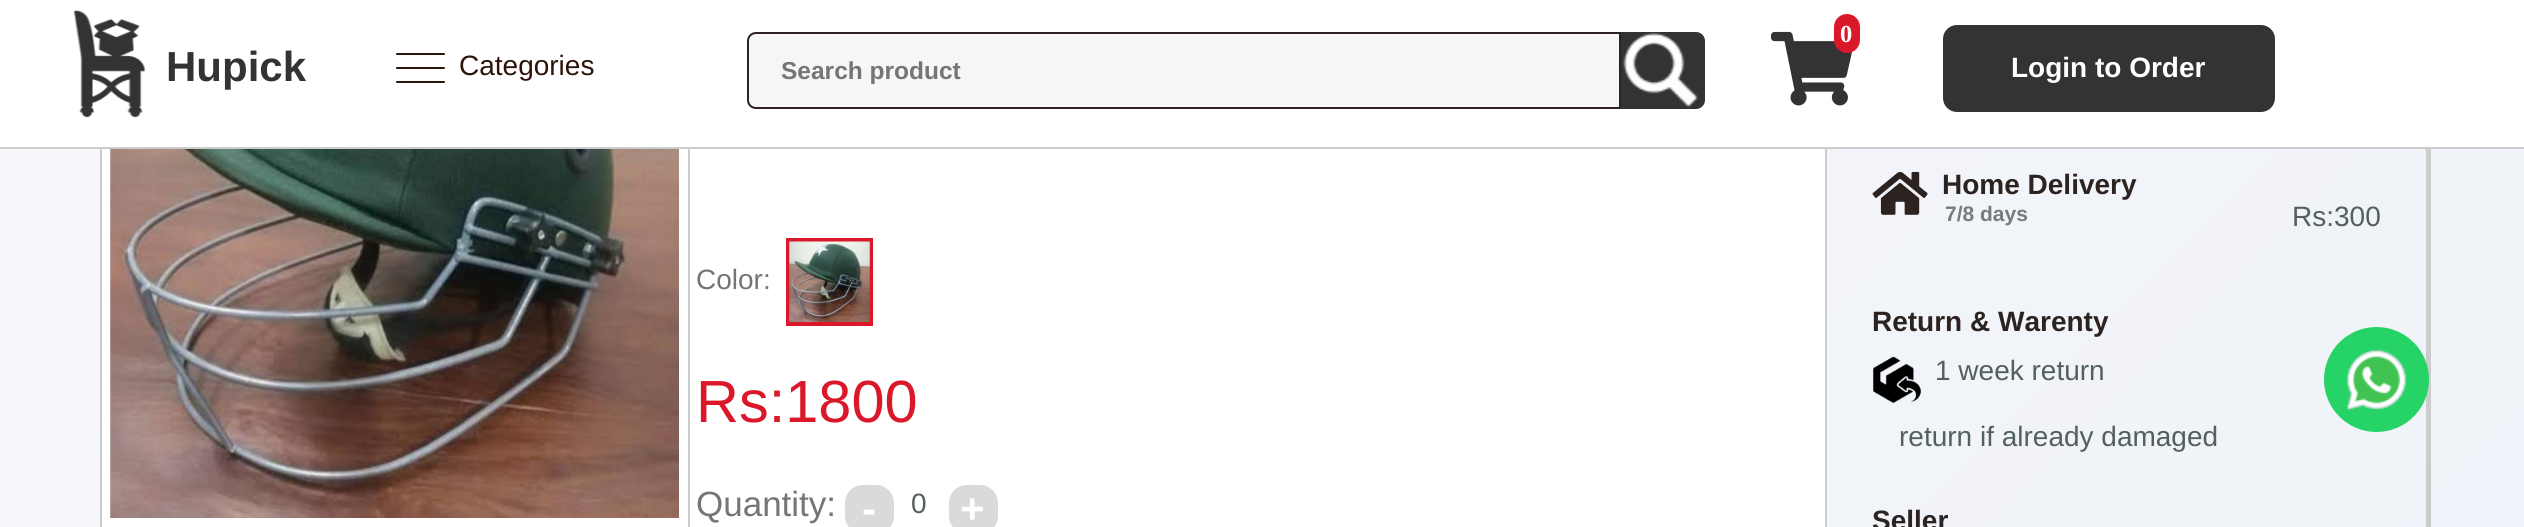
#include <cairo.h>
#include <math.h>
#include <stddef.h>


static void round_rect(cairo_t *cr, double x, double y, double w, double h, double r) {
    cairo_new_sub_path(cr);
    cairo_arc(cr, x + w - r, y + h - r, r, 0, M_PI / 2);
    cairo_arc(cr, x + r, y + h - r, r, M_PI / 2, M_PI);
    cairo_arc(cr, x + r, y + r, r, M_PI, 1.5 * M_PI);
    cairo_arc(cr, x + w - r, y + r, r, 1.5 * M_PI, 2 * M_PI);
    cairo_close_path(cr);
}

static void picture(cairo_t *cr, const char *path, double x, double y, double w, double h) {
    cairo_surface_t *image = cairo_image_surface_create_from_png(path);
    cairo_save(cr);
    cairo_set_source_surface(cr, image, x, y);
    cairo_rectangle(cr, x, y, w, h);
    cairo_fill(cr);
    cairo_restore(cr);
    cairo_surface_destroy(image);
}

int main(void) {
    cairo_surface_t *surface = cairo_image_surface_create(CAIRO_FORMAT_RGB24, 2524, 527);
    cairo_t *cr = cairo_create(surface);
    cairo_font_options_t *options = cairo_font_options_create();
    cairo_font_options_set_hint_metrics(options, CAIRO_HINT_METRICS_OFF);
    cairo_font_options_set_hint_style(options, CAIRO_HINT_STYLE_NONE);
    cairo_set_font_options(cr, options);
    cairo_set_miter_limit(cr, 4);
    cairo_pattern_t *gradient;
    cairo_set_source_rgb(cr, 1, 1, 1);
    cairo_paint(cr);
    gradient = cairo_pattern_create_linear(-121, -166, 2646, 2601);
    cairo_pattern_add_color_stop_rgba(gradient, 0, 0.973, 0.976, 0.988, 1);
    cairo_pattern_add_color_stop_rgba(gradient, 1, 0.914, 0.933, 0.961, 1);
    cairo_set_source(cr, gradient);
    cairo_pattern_destroy(gradient);
    cairo_rectangle(cr, 0, 149, 2524, 378);
    cairo_fill(cr);
    cairo_rectangle(cr, 101, -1, 1725, 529);
    cairo_set_source_rgb(cr, 0.8, 0.8, 0.8);
    cairo_stroke(cr);
    cairo_set_source_rgb(cr, 1, 1, 1);
    cairo_rectangle(cr, 102, 149, 1723, 378);
    cairo_fill(cr);
    cairo_rectangle(cr, 101, -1, 588, 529);
    cairo_set_source_rgb(cr, 0.8, 0.8, 0.8);
    cairo_stroke(cr);
    cairo_new_path(cr);
    cairo_move_to(cr, 1827, -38);
    cairo_line_to(cr, 1827, -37);
    cairo_line_to(cr, 2426, -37);
    cairo_line_to(cr, 2426, 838);
    cairo_line_to(cr, 1827, 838);
    cairo_line_to(cr, 1827, 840);
    cairo_line_to(cr, 2431, 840);
    cairo_line_to(cr, 2431, -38);
    cairo_close_path(cr);
    cairo_fill(cr);
    cairo_rectangle(cr, 0, 147, 2524, 2);
    cairo_fill(cr);
    cairo_set_source_rgb(cr, 1, 1, 1);
    cairo_rectangle(cr, 100, 0, 2331, 147);
    cairo_fill(cr);
    picture(cr, "img1.png", 73, 10, 73, 108);
    cairo_select_font_face(cr, "Liberation Sans", CAIRO_FONT_SLANT_NORMAL, CAIRO_FONT_WEIGHT_BOLD);
    cairo_set_font_size(cr, 42);
    cairo_set_source_rgb(cr, 0.2, 0.2, 0.2);
    cairo_move_to(cr, 166, 81);
    cairo_show_text(cr, "Hupick");
    cairo_set_source_rgb(cr, 0.18, 0.075, 0.035);
    round_rect(cr, 396, 67, 49, 2, 1);
    cairo_fill(cr);
    round_rect(cr, 396, 53, 49, 2, 1);
    cairo_fill(cr);
    round_rect(cr, 396, 81, 49, 2, 1);
    cairo_fill(cr);
    cairo_select_font_face(cr, "Liberation Sans", CAIRO_FONT_SLANT_NORMAL, CAIRO_FONT_WEIGHT_NORMAL);
    cairo_set_font_size(cr, 28);
    cairo_move_to(cr, 459, 75);
    cairo_show_text(cr, "Categories");
    cairo_set_source_rgb(cr, 0.961, 0.961, 0.961);
    cairo_new_path(cr);
    cairo_move_to(cr, 756, 33);
    cairo_line_to(cr, 1620, 33);
    cairo_line_to(cr, 1620, 108);
    cairo_line_to(cr, 756, 108);
    cairo_curve_to(cr, 751.5, 108, 748, 104.5, 748, 100);
    cairo_line_to(cr, 748, 41);
    cairo_curve_to(cr, 748, 36.5, 751.5, 33, 756, 33);
    cairo_close_path(cr);
    cairo_fill_preserve(cr);
    cairo_set_source_rgb(cr, 0.173, 0.137, 0.125);
    cairo_stroke(cr);
    cairo_save(cr);
    cairo_rectangle(cr, 781, 56, 838, 28);
    cairo_clip(cr);
    cairo_select_font_face(cr, "Liberation Sans", CAIRO_FONT_SLANT_NORMAL, CAIRO_FONT_WEIGHT_BOLD);
    cairo_set_font_size(cr, 24.5);
    cairo_set_source_rgb(cr, 0.459, 0.459, 0.459);
    cairo_move_to(cr, 781, 79);
    cairo_show_text(cr, "Search product");
    cairo_restore(cr);
    cairo_set_source_rgb(cr, 0.2, 0.2, 0.2);
    cairo_new_path(cr);
    cairo_move_to(cr, 1621, 32);
    cairo_line_to(cr, 1696, 32);
    cairo_curve_to(cr, 1701, 32, 1705, 36, 1705, 41);
    cairo_line_to(cr, 1705, 100);
    cairo_curve_to(cr, 1705, 105, 1701, 109, 1696, 109);
    cairo_line_to(cr, 1621, 109);
    cairo_close_path(cr);
    cairo_fill(cr);
    picture(cr, "img2.png", 1623, 32, 76, 76);
    picture(cr, "img3.png", 1771, 31, 82, 75);
    cairo_set_source_rgb(cr, 0.859, 0.094, 0.161);
    round_rect(cr, 1834, 14, 26, 39, 13);
    cairo_fill(cr);
    cairo_select_font_face(cr, "Liberation Serif", CAIRO_FONT_SLANT_NORMAL, CAIRO_FONT_WEIGHT_BOLD);
    cairo_set_font_size(cr, 24.5);
    cairo_set_source_rgb(cr, 1, 1, 1);
    cairo_move_to(cr, 1840, 42);
    cairo_show_text(cr, "0");
    cairo_set_source_rgb(cr, 0.2, 0.2, 0.2);
    round_rect(cr, 1943, 25, 332, 87, 14);
    cairo_fill(cr);
    cairo_select_font_face(cr, "Liberation Sans", CAIRO_FONT_SLANT_NORMAL, CAIRO_FONT_WEIGHT_BOLD);
    cairo_set_font_size(cr, 28);
    cairo_set_source_rgb(cr, 1, 1, 1);
    cairo_move_to(cr, 2011, 77);
    cairo_show_text(cr, "Login to Order");
    picture(cr, "img4.png", 110, 149, 569, 369);
    cairo_select_font_face(cr, "Liberation Sans", CAIRO_FONT_SLANT_NORMAL, CAIRO_FONT_WEIGHT_NORMAL);
    cairo_set_source_rgb(cr, 0.459, 0.459, 0.459);
    cairo_move_to(cr, 696, 289);
    cairo_show_text(cr, "Color:");
    cairo_rectangle(cr, 788, 240, 83, 84);
    cairo_set_source_rgb(cr, 0.859, 0.094, 0.161);
    cairo_set_line_width(cr, 4);
    cairo_stroke(cr);
    picture(cr, "img5.png", 789, 241, 81, 81);
    cairo_set_font_size(cr, 59.5);
    cairo_move_to(cr, 696, 422);
    cairo_show_text(cr, "Rs:1800");
    cairo_set_font_size(cr, 35);
    cairo_set_source_rgb(cr, 0.459, 0.459, 0.459);
    cairo_move_to(cr, 696, 516);
    cairo_show_text(cr, "Quantity:");
    cairo_set_source_rgb(cr, 0.855, 0.855, 0.855);
    round_rect(cr, 845, 485, 49, 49, 18);
    cairo_fill(cr);
    cairo_select_font_face(cr, "Liberation Sans", CAIRO_FONT_SLANT_NORMAL, CAIRO_FONT_WEIGHT_BOLD);
    cairo_set_font_size(cr, 42);
    cairo_set_source_rgb(cr, 1, 1, 1);
    cairo_move_to(cr, 862, 523);
    cairo_show_text(cr, "-");
    cairo_select_font_face(cr, "Liberation Sans", CAIRO_FONT_SLANT_NORMAL, CAIRO_FONT_WEIGHT_NORMAL);
    cairo_set_font_size(cr, 28);
    cairo_set_source_rgb(cr, 0.322, 0.376, 0.373);
    cairo_move_to(cr, 911, 513);
    cairo_show_text(cr, "0");
    cairo_set_source_rgb(cr, 0.855, 0.855, 0.855);
    round_rect(cr, 949, 485, 49, 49, 18);
    cairo_fill(cr);
    cairo_select_font_face(cr, "Liberation Sans", CAIRO_FONT_SLANT_NORMAL, CAIRO_FONT_WEIGHT_BOLD);
    cairo_set_font_size(cr, 42);
    cairo_set_source_rgb(cr, 1, 1, 1);
    cairo_move_to(cr, 960, 523);
    cairo_show_text(cr, "+");
    picture(cr, "img6.png", 1872, 171, 56, 44);
    cairo_set_font_size(cr, 28);
    cairo_set_source_rgb(cr, 0.173, 0.137, 0.125);
    cairo_move_to(cr, 1942, 194);
    cairo_show_text(cr, "Home Delivery");
    cairo_set_font_size(cr, 21);
    cairo_set_source_rgb(cr, 0.475, 0.478, 0.49);
    cairo_move_to(cr, 1945, 221);
    cairo_show_text(cr, "7/8 days");
    cairo_select_font_face(cr, "Liberation Sans", CAIRO_FONT_SLANT_NORMAL, CAIRO_FONT_WEIGHT_NORMAL);
    cairo_set_font_size(cr, 28);
    cairo_set_source_rgb(cr, 0.322, 0.376, 0.373);
    cairo_move_to(cr, 2292, 226);
    cairo_show_text(cr, "Rs:300");
    cairo_select_font_face(cr, "Liberation Sans", CAIRO_FONT_SLANT_NORMAL, CAIRO_FONT_WEIGHT_BOLD);
    cairo_set_source_rgb(cr, 0.173, 0.137, 0.125);
    cairo_move_to(cr, 1872, 331);
    cairo_show_text(cr, "Return & Warenty");
    picture(cr, "img7.png", 1873, 356, 48, 47);
    cairo_select_font_face(cr, "Liberation Sans", CAIRO_FONT_SLANT_NORMAL, CAIRO_FONT_WEIGHT_NORMAL);
    cairo_set_source_rgb(cr, 0.322, 0.376, 0.373);
    cairo_move_to(cr, 1935, 380);
    cairo_show_text(cr, "1 week return");
    cairo_move_to(cr, 1899, 446);
    cairo_show_text(cr, "return if already damaged");
    cairo_select_font_face(cr, "Liberation Sans", CAIRO_FONT_SLANT_NORMAL, CAIRO_FONT_WEIGHT_BOLD);
    cairo_set_source_rgb(cr, 0.173, 0.137, 0.125);
    cairo_move_to(cr, 1872, 530);
    cairo_show_text(cr, "Seller");
    cairo_set_source_rgb(cr, 0.145, 0.827, 0.4);
    cairo_new_path(cr);
    cairo_arc(cr, 2376.5, 379.5, 52.5, 0, 2 * M_PI);
    cairo_fill(cr);
    picture(cr, "img8.png", 2346, 350, 60, 61);
    cairo_surface_write_to_png(surface, "page.png");
    cairo_font_options_destroy(options);
    cairo_destroy(cr);
    cairo_surface_destroy(surface);
    return 0;
}
